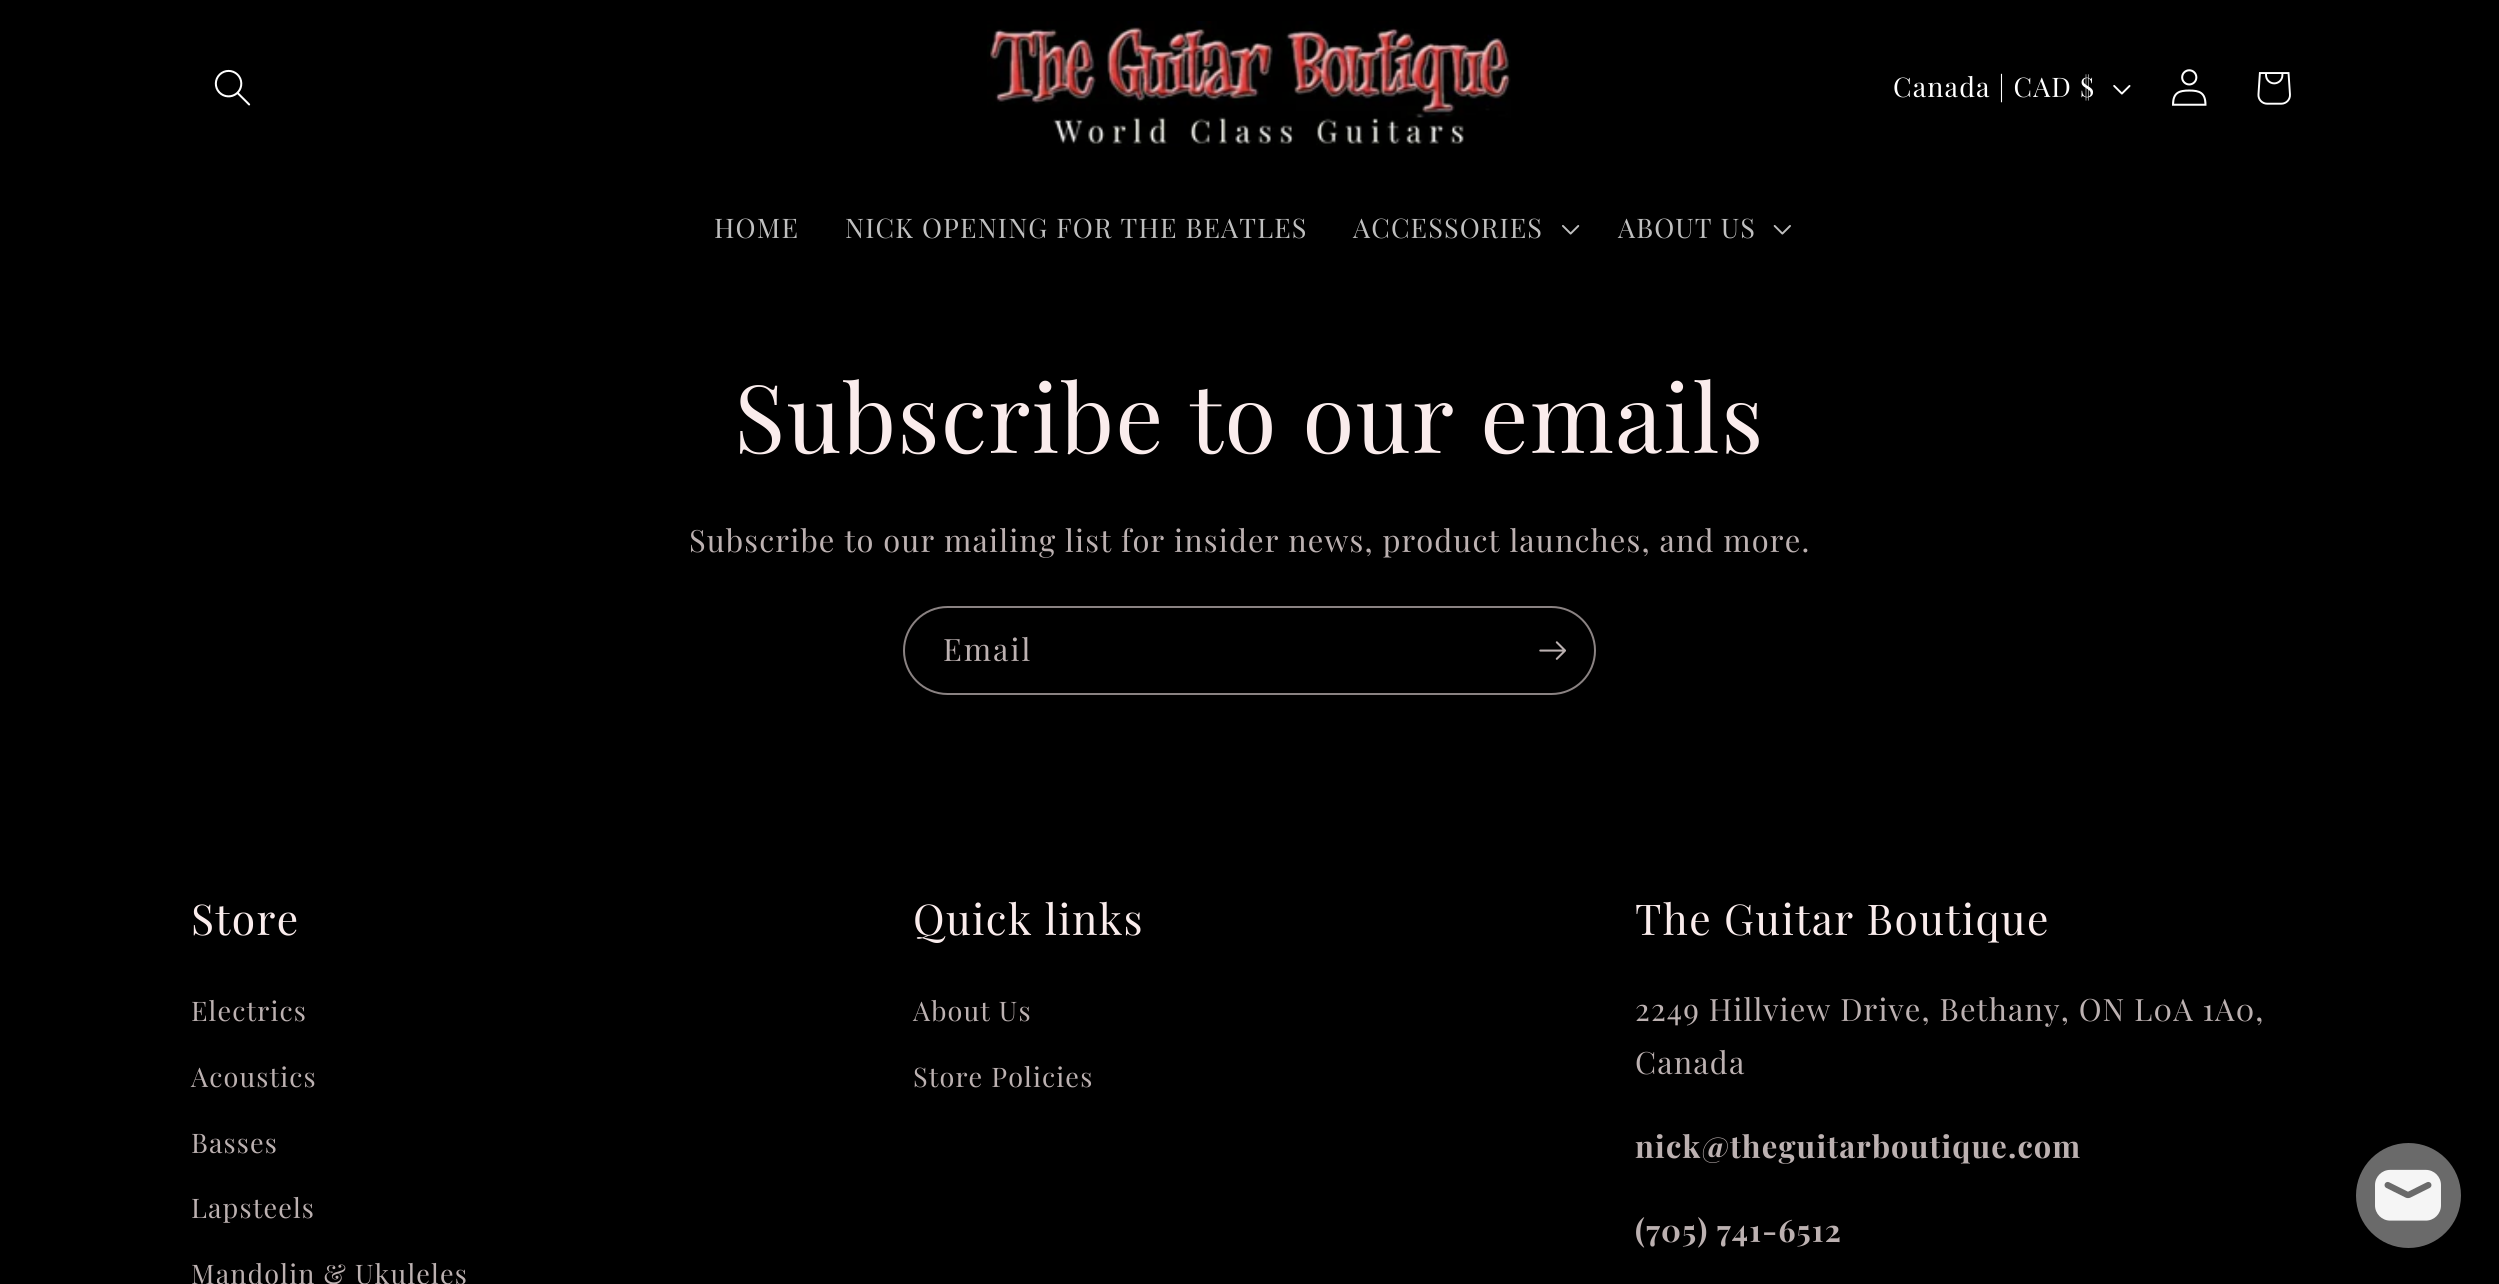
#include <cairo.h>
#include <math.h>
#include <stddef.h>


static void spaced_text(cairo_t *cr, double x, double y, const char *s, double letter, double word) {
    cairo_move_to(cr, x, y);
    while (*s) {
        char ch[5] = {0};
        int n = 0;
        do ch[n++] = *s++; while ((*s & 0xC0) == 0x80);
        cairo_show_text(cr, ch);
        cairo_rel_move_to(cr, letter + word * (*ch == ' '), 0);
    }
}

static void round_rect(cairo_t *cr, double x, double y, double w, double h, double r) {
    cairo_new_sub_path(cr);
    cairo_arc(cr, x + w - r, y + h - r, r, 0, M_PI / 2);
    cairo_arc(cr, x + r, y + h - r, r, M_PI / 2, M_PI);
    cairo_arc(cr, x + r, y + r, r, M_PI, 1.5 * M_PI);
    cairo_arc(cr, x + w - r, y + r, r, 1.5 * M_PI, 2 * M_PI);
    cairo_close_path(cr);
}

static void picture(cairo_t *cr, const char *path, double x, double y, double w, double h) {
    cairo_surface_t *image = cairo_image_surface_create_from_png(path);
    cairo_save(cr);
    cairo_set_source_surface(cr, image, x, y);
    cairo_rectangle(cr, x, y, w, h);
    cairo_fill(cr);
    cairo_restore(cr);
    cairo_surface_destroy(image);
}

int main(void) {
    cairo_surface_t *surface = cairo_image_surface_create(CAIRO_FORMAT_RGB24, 2499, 1284);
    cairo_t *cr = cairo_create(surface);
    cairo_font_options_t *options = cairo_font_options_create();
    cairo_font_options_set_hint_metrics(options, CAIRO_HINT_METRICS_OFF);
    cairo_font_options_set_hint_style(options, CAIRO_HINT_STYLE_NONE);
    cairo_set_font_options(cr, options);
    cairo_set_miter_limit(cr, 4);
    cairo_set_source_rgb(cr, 0, 0, 0);
    cairo_paint(cr);
    picture(cr, "img1.png", 214, 69, 37, 37);
    picture(cr, "img2.png", 987, 21, 524, 126);
    cairo_select_font_face(cr, "Playfair Display", CAIRO_FONT_SLANT_NORMAL, CAIRO_FONT_WEIGHT_NORMAL);
    cairo_set_font_size(cr, 27);
    cairo_set_source_rgb(cr, 1, 1, 1);
    spaced_text(cr, 1893, 97, "Canada | CAD $", 1.15, 0);
    picture(cr, "img3.png", 2113, 85, 18, 10);
    picture(cr, "img4.png", 2172, 69, 35, 37);
    picture(cr, "img5.png", 2257, 72, 34, 33);
    cairo_set_source_rgb(cr, 0.749, 0.749, 0.749);
    spaced_text(cr, 714, 238, "HOME", 1.15, 0);
    spaced_text(cr, 845, 238, "NICK OPENING FOR THE BEATLES", 1.15, 0);
    spaced_text(cr, 1353, 238, "ACCESSORIES", 1.15, 0);
    picture(cr, "img6.png", 1562, 225, 18, 10);
    spaced_text(cr, 1618, 238, "ABOUT US", 1.15, 0);
    picture(cr, "img7.png", 1773, 225, 18, 10);
    cairo_set_font_size(cr, 94.5);
    cairo_set_source_rgb(cr, 0.98, 0.925, 0.925);
    spaced_text(cr, 734, 453, "Subscribe to our emails", 1.4, 0);
    cairo_set_font_size(cr, 30.8);
    cairo_set_source_rgb(cr, 0.737, 0.694, 0.694);
    spaced_text(cr, 689, 552, "Subscribe to our mailing list for insider news, product launches, and more.", 1.15, 0);
    round_rect(cr, 904, 607, 691, 87, 43.5);
    cairo_set_source_rgb(cr, 0.541, 0.51, 0.51);
    cairo_stroke(cr);
    cairo_set_source_rgb(cr, 0.737, 0.694, 0.694);
    spaced_text(cr, 943, 661, "Email", 2, 0);
    picture(cr, "img8.png", 1539, 641, 27, 19);
    cairo_set_font_size(cr, 42.5);
    cairo_set_source_rgb(cr, 0.98, 0.925, 0.925);
    spaced_text(cr, 191, 935, "Store", 1.4, 0);
    cairo_set_font_size(cr, 27);
    cairo_set_source_rgb(cr, 0.737, 0.694, 0.694);
    spaced_text(cr, 191, 1021, "Electrics", 1.15, 0);
    spaced_text(cr, 191, 1087, "Acoustics", 1.15, 0);
    spaced_text(cr, 191, 1153, "Basses", 1.15, 0);
    spaced_text(cr, 191, 1218, "Lapsteels", 1.15, 0);
    spaced_text(cr, 191, 1284, "Mandolin & Ukuleles", 1.15, 0);
    cairo_set_font_size(cr, 42.5);
    cairo_set_source_rgb(cr, 0.98, 0.925, 0.925);
    spaced_text(cr, 913, 935, "Quick links", 1.4, 0);
    cairo_set_font_size(cr, 27);
    cairo_set_source_rgb(cr, 0.737, 0.694, 0.694);
    spaced_text(cr, 913, 1021, "About Us", 1.15, 0);
    spaced_text(cr, 913, 1087, "Store Policies", 1.15, 0);
    cairo_set_font_size(cr, 42.5);
    cairo_set_source_rgb(cr, 0.98, 0.925, 0.925);
    spaced_text(cr, 1635, 935, "The Guitar Boutique", 1.4, 0);
    cairo_set_font_size(cr, 30.8);
    cairo_set_source_rgb(cr, 0.737, 0.694, 0.694);
    spaced_text(cr, 1635, 1021, "2249 Hillview Drive, Bethany, ON L0A 1A0,", 1.15, 0);
    spaced_text(cr, 1635, 1074, "Canada", 1.15, 0);
    cairo_select_font_face(cr, "Playfair Display", CAIRO_FONT_SLANT_NORMAL, CAIRO_FONT_WEIGHT_BOLD);
    spaced_text(cr, 1635, 1158, "nick@theguitarboutique.com", 1.15, 0);
    spaced_text(cr, 1635, 1242, "(705) 741-6512", 1.15, 0);
    cairo_set_source_rgb(cr, 0.416, 0.416, 0.416);
    cairo_new_path(cr);
    cairo_arc(cr, 2408.5, 1195.5, 52.5, 0, 2 * M_PI);
    cairo_fill(cr);
    picture(cr, "img9.png", 2375, 1169, 66, 52);
    cairo_surface_write_to_png(surface, "page.png");
    cairo_font_options_destroy(options);
    cairo_destroy(cr);
    cairo_surface_destroy(surface);
    return 0;
}
